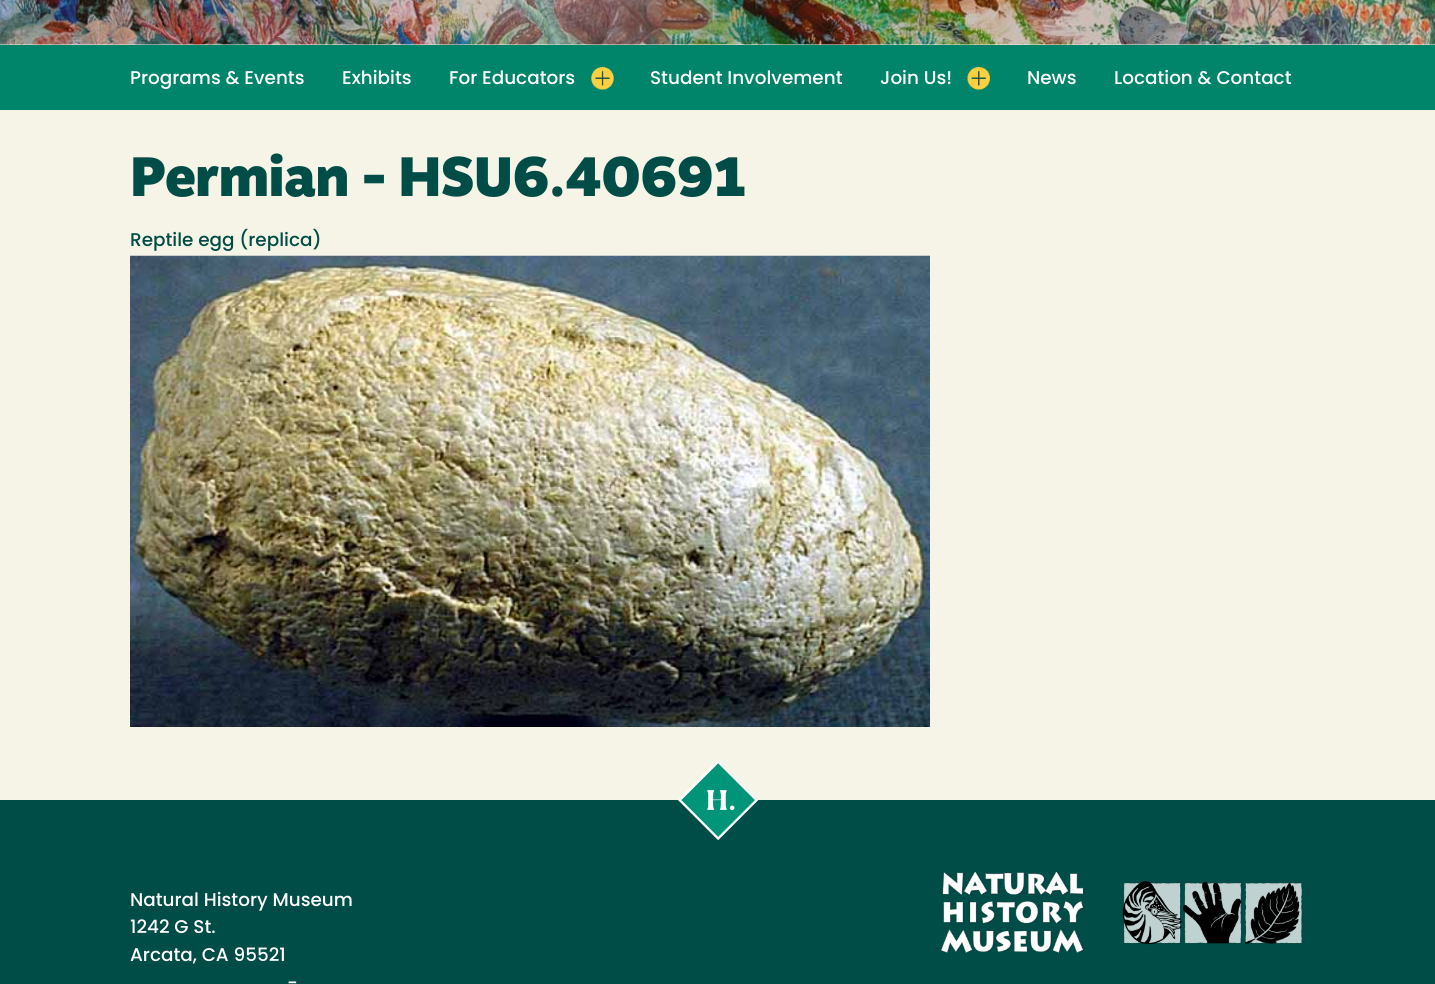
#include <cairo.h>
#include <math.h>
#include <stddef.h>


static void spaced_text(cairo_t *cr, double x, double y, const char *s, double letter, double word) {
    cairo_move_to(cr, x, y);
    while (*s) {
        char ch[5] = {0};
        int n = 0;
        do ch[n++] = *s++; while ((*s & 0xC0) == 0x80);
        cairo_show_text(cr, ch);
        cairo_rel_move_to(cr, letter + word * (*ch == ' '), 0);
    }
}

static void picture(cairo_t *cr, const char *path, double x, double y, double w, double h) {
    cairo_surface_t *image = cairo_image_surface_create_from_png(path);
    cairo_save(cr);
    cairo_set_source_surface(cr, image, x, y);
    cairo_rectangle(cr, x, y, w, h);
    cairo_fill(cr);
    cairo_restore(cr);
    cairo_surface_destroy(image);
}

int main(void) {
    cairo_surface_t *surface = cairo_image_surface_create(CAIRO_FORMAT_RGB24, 1435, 984);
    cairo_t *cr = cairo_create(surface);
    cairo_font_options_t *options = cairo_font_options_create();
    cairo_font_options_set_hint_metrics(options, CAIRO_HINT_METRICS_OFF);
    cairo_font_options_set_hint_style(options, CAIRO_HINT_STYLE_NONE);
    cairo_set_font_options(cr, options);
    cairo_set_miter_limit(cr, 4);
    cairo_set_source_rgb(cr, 0.961, 0.953, 0.906);
    cairo_paint(cr);
    picture(cr, "img1.png", 0, 0, 1435, 45);
    cairo_set_source_rgb(cr, 0, 0.522, 0.416);
    cairo_rectangle(cr, 0, 45, 1435, 65);
    cairo_fill(cr);
    cairo_select_font_face(cr, "Poppins Medium", CAIRO_FONT_SLANT_NORMAL, CAIRO_FONT_WEIGHT_NORMAL);
    cairo_set_font_size(cr, 18.4);
    cairo_set_source_rgb(cr, 1, 1, 1);
    cairo_move_to(cr, 130, 84);
    cairo_show_text(cr, "Programs & Events");
    cairo_move_to(cr, 342, 84);
    cairo_show_text(cr, "Exhibits");
    cairo_move_to(cr, 449, 84);
    cairo_show_text(cr, "For Educators");
    picture(cr, "img2.png", 591, 67, 23, 23);
    cairo_move_to(cr, 650, 84);
    cairo_show_text(cr, "Student Involvement");
    cairo_move_to(cr, 880, 84);
    cairo_show_text(cr, "Join Us!");
    picture(cr, "img3.png", 967, 67, 23, 23);
    cairo_move_to(cr, 1027, 84);
    cairo_show_text(cr, "News");
    cairo_move_to(cr, 1114, 84);
    cairo_show_text(cr, "Location & Contact");
    cairo_select_font_face(cr, "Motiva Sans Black", CAIRO_FONT_SLANT_NORMAL, CAIRO_FONT_WEIGHT_NORMAL);
    cairo_set_font_size(cr, 55.25);
    cairo_set_source_rgb(cr, 0, 0.298, 0.275);
    spaced_text(cr, 130, 196, "Permian - HSU6.40691", -0.9, 0);
    cairo_select_font_face(cr, "Poppins Medium", CAIRO_FONT_SLANT_NORMAL, CAIRO_FONT_WEIGHT_NORMAL);
    cairo_set_font_size(cr, 18.4);
    cairo_move_to(cr, 130, 246);
    cairo_show_text(cr, "Reptile egg (replica)");
    picture(cr, "img4.png", 130, 255, 800, 472);
    cairo_rectangle(cr, 0, 800, 1435, 184);
    cairo_fill(cr);
    picture(cr, "img5.png", 678, 760, 81, 81);
    cairo_set_source_rgb(cr, 1, 1, 1);
    cairo_move_to(cr, 130, 906);
    cairo_show_text(cr, "Natural History Museum");
    cairo_move_to(cr, 130, 933);
    cairo_show_text(cr, "1242 G St.");
    cairo_move_to(cr, 130, 961);
    cairo_show_text(cr, "Arcata, CA 95521");
    cairo_move_to(cr, 287, 989);
    cairo_show_text(cr, "-");
    picture(cr, "img6.png", 941, 871, 361, 82);
    cairo_surface_write_to_png(surface, "page.png");
    cairo_font_options_destroy(options);
    cairo_destroy(cr);
    cairo_surface_destroy(surface);
    return 0;
}
